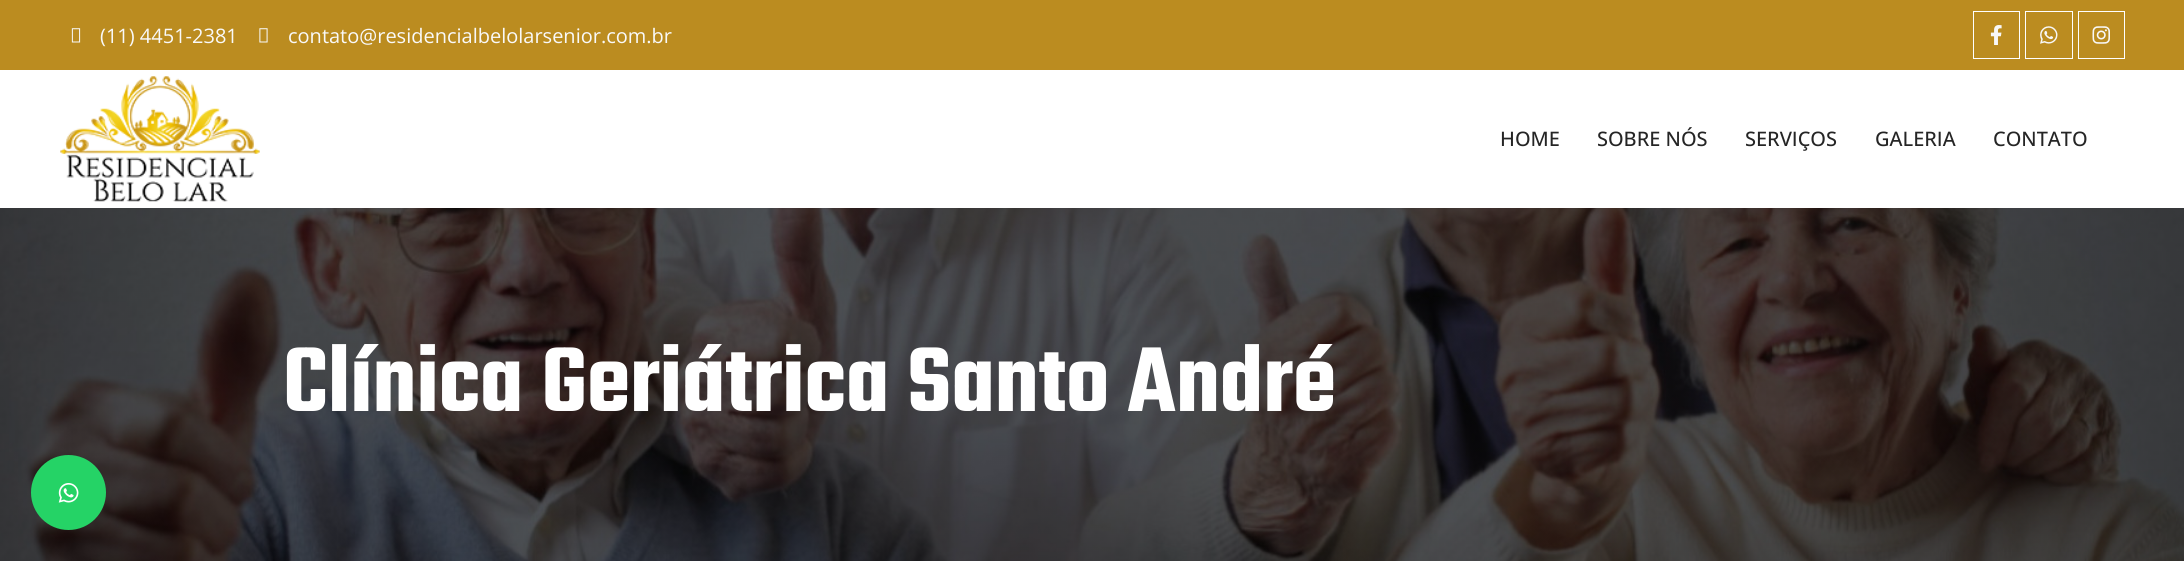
#include <cairo.h>
#include <math.h>
#include <stddef.h>


static void picture(cairo_t *cr, const char *path, double x, double y, double w, double h) {
    cairo_surface_t *image = cairo_image_surface_create_from_png(path);
    cairo_save(cr);
    cairo_set_source_surface(cr, image, x, y);
    cairo_rectangle(cr, x, y, w, h);
    cairo_fill(cr);
    cairo_restore(cr);
    cairo_surface_destroy(image);
}

int main(void) {
    cairo_surface_t *surface = cairo_image_surface_create(CAIRO_FORMAT_RGB24, 2184, 561);
    cairo_t *cr = cairo_create(surface);
    cairo_font_options_t *options = cairo_font_options_create();
    cairo_font_options_set_hint_metrics(options, CAIRO_HINT_METRICS_OFF);
    cairo_font_options_set_hint_style(options, CAIRO_HINT_STYLE_NONE);
    cairo_set_font_options(cr, options);
    cairo_set_miter_limit(cr, 4);
    cairo_set_source_rgb(cr, 0.733, 0.549, 0.125);
    cairo_paint(cr);
    picture(cr, "img1.png", 71, 28, 10, 15);
    cairo_select_font_face(cr, "Open Sans", CAIRO_FONT_SLANT_NORMAL, CAIRO_FONT_WEIGHT_NORMAL);
    cairo_set_font_size(cr, 20);
    cairo_set_source_rgb(cr, 0.973, 0.973, 0.973);
    cairo_move_to(cr, 100, 43);
    cairo_show_text(cr, "(11) 4451-2381");
    picture(cr, "img2.png", 259, 28, 9, 15);
    cairo_move_to(cr, 288, 43);
    cairo_show_text(cr, "contato@residencialbelolarsenior.com.br");
    cairo_rectangle(cr, 1973.5, 11.5, 46, 47);
    cairo_set_source_rgb(cr, 1, 1, 1);
    cairo_set_line_width(cr, 1);
    cairo_stroke(cr);
    picture(cr, "img3.png", 1990, 25, 12, 20);
    cairo_rectangle(cr, 2025.5, 11.5, 47, 47);
    cairo_stroke(cr);
    picture(cr, "img4.png", 2040, 26, 18, 18);
    cairo_rectangle(cr, 2078.5, 11.5, 46, 47);
    cairo_stroke(cr);
    picture(cr, "img5.png", 2092, 26, 18, 18);
    cairo_rectangle(cr, 0, 70, 2184, 138);
    cairo_fill(cr);
    picture(cr, "img6.png", 60, 76, 200, 126);
    cairo_select_font_face(cr, "Open Sans Medium", CAIRO_FONT_SLANT_NORMAL, CAIRO_FONT_WEIGHT_NORMAL);
    cairo_set_source_rgb(cr, 0.145, 0.145, 0.145);
    cairo_move_to(cr, 1500, 146);
    cairo_show_text(cr, "HOME");
    cairo_move_to(cr, 1597, 146);
    cairo_show_text(cr, "SOBRE NÓS");
    cairo_move_to(cr, 1745, 146);
    cairo_show_text(cr, "SERVIÇOS");
    cairo_move_to(cr, 1875, 146);
    cairo_show_text(cr, "GALERIA");
    cairo_move_to(cr, 1993, 146);
    cairo_show_text(cr, "CONTATO");
    picture(cr, "img7.png", 0, 208, 2184, 353);
    cairo_select_font_face(cr, "Teko SemiBold", CAIRO_FONT_SLANT_NORMAL, CAIRO_FONT_WEIGHT_NORMAL);
    cairo_set_font_size(cr, 100);
    cairo_set_source_rgb(cr, 1, 1, 1);
    cairo_move_to(cr, 283, 411);
    cairo_show_text(cr, "Clínica Geriátrica Santo André");
    cairo_set_source_rgb(cr, 0.145, 0.827, 0.4);
    cairo_new_path(cr);
    cairo_arc(cr, 68.5, 492.5, 37.5, 0, 2 * M_PI);
    cairo_fill(cr);
    picture(cr, "img8.png", 58, 483, 21, 20);
    cairo_surface_write_to_png(surface, "page.png");
    cairo_font_options_destroy(options);
    cairo_destroy(cr);
    cairo_surface_destroy(surface);
    return 0;
}
